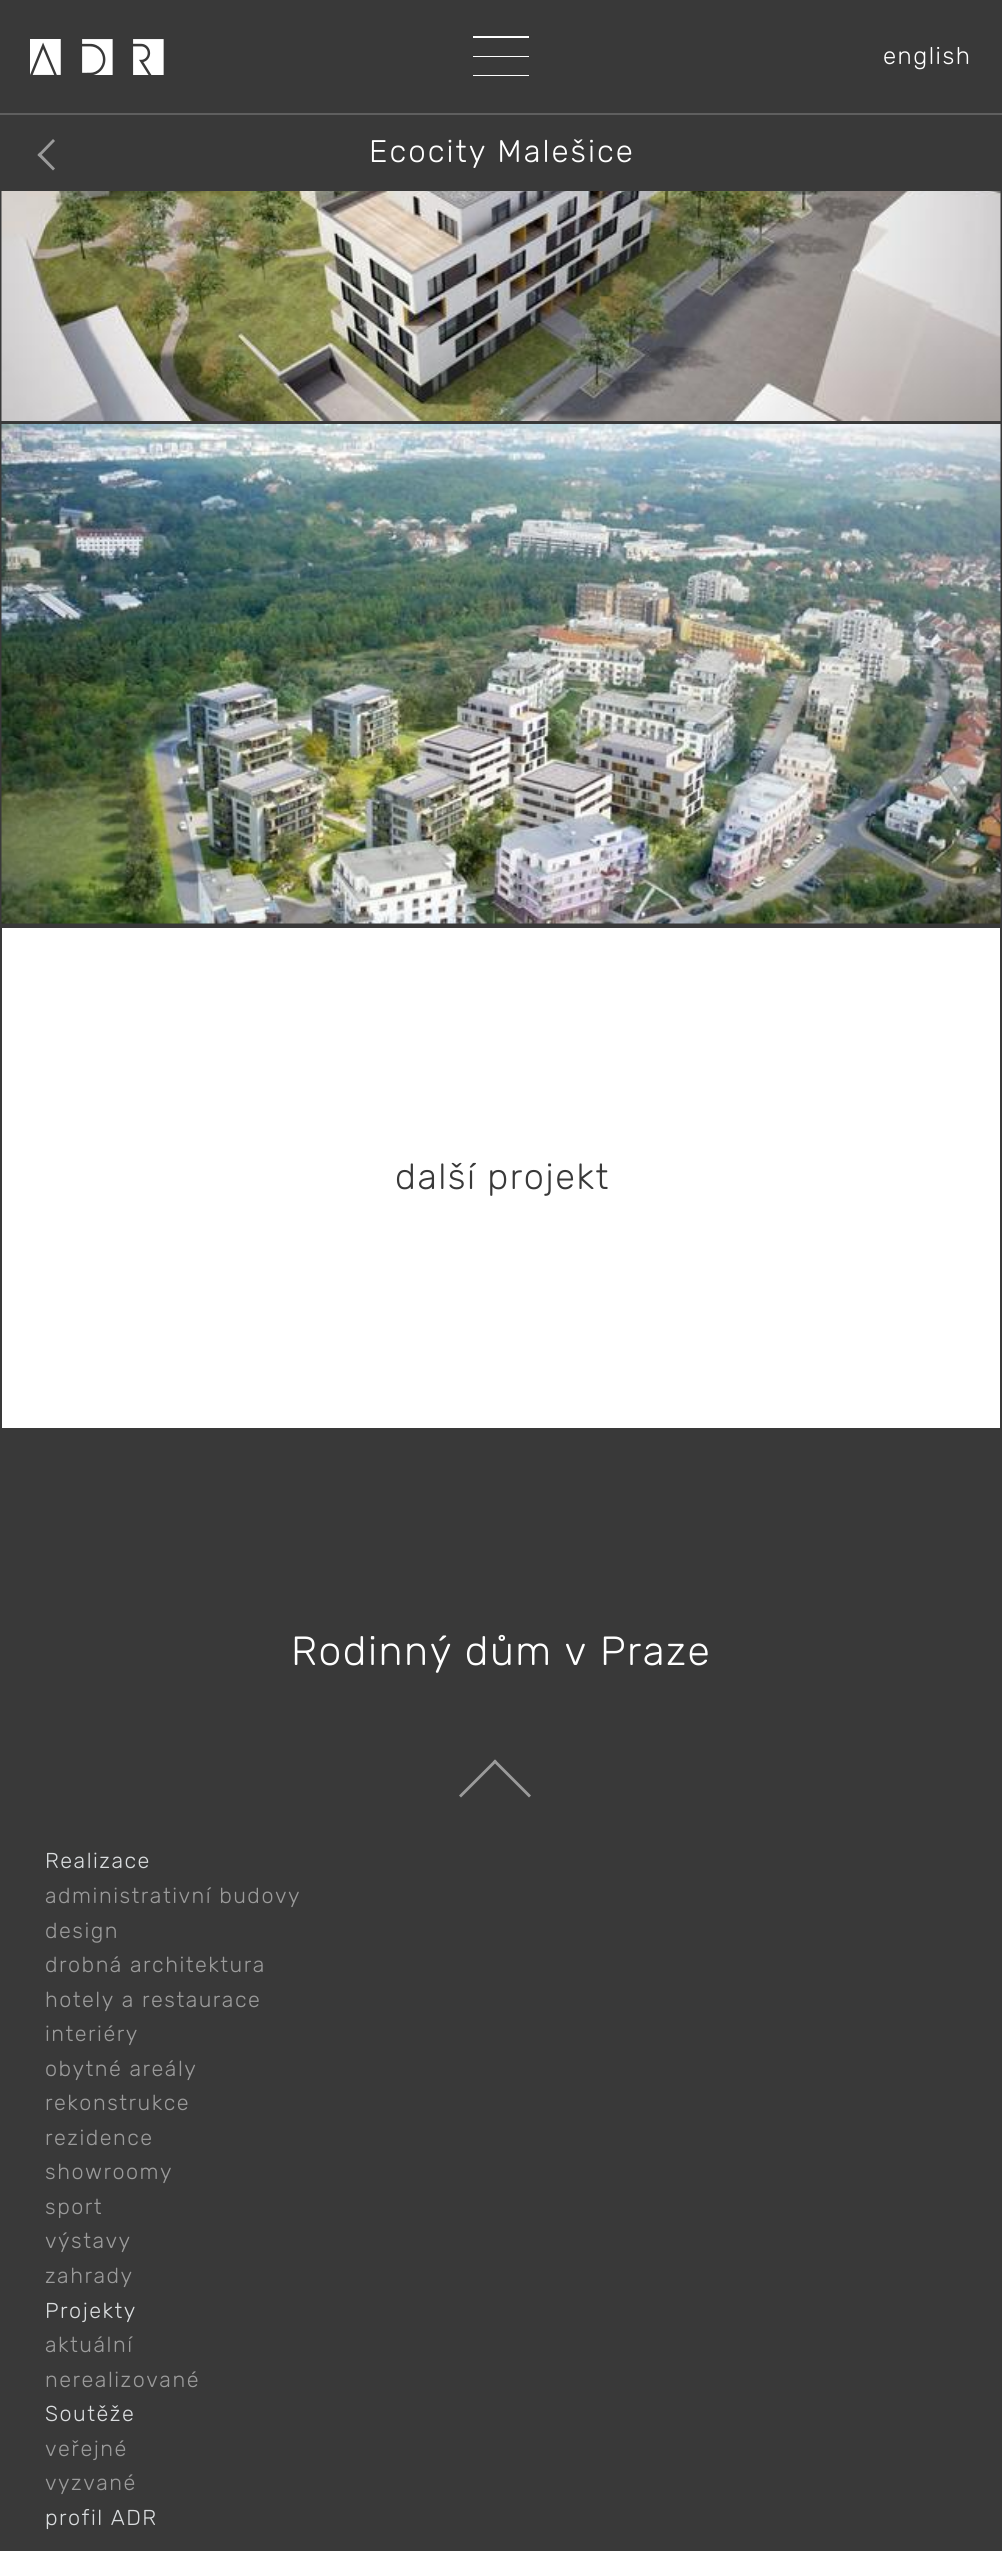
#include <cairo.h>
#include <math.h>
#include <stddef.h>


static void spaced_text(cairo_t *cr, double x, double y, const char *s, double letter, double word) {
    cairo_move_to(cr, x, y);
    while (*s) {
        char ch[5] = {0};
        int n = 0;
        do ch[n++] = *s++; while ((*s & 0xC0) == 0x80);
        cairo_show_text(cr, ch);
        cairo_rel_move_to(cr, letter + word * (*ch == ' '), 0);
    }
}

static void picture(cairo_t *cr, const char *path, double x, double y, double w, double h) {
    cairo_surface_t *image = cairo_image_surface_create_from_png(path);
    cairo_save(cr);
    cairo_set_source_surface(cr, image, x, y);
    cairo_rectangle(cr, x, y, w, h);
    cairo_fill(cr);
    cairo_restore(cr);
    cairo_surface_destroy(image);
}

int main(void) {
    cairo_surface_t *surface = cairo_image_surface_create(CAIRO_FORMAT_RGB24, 1002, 2551);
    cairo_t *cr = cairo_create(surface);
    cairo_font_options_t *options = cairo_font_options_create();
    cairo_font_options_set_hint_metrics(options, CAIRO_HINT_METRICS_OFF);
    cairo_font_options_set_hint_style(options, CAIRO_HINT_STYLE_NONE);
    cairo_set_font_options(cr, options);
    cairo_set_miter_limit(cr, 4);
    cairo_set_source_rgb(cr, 0.224, 0.224, 0.224);
    cairo_paint(cr);
    cairo_set_source_rgb(cr, 0.373, 0.373, 0.373);
    cairo_rectangle(cr, 0, 113, 1002, 2);
    cairo_fill(cr);
    picture(cr, "img1.png", 30, 39, 134, 36);
    cairo_set_source_rgb(cr, 1, 1, 1);
    cairo_rectangle(cr, 473, 75, 56, 1);
    cairo_fill(cr);
    cairo_rectangle(cr, 473, 56, 56, 1);
    cairo_fill(cr);
    cairo_rectangle(cr, 473, 36, 56, 2);
    cairo_fill(cr);
    cairo_select_font_face(cr, "Rubik Light", CAIRO_FONT_SLANT_NORMAL, CAIRO_FONT_WEIGHT_NORMAL);
    cairo_set_font_size(cr, 24);
    spaced_text(cr, 883, 64, "english", 1.5, 0);
    cairo_set_source_rgb(cr, 0.608, 0.608, 0.608);
    cairo_new_path(cr);
    cairo_move_to(cr, 55, 168.5);
    cairo_line_to(cr, 53, 170.5);
    cairo_line_to(cr, 37.5, 155);
    cairo_line_to(cr, 39.5, 152.5);
    cairo_close_path(cr);
    cairo_fill(cr);
    cairo_new_path(cr);
    cairo_move_to(cr, 55, 141);
    cairo_line_to(cr, 39.5, 157);
    cairo_line_to(cr, 37.5, 155);
    cairo_line_to(cr, 53, 139);
    cairo_close_path(cr);
    cairo_fill(cr);
    cairo_set_font_size(cr, 31.25);
    cairo_set_source_rgb(cr, 1, 1, 1);
    spaced_text(cr, 369, 162, "Ecocity Malešice", 2, 0);
    picture(cr, "img2.png", 1, 191, 1000, 230);
    picture(cr, "img3.png", 1, 424, 1000, 500);
    cairo_rectangle(cr, 2, 928, 998, 500);
    cairo_fill(cr);
    cairo_set_font_size(cr, 36);
    cairo_set_source_rgb(cr, 0.224, 0.224, 0.224);
    spaced_text(cr, 395, 1189, "další projekt", 1.5, 0);
    cairo_set_font_size(cr, 40.75);
    cairo_set_source_rgb(cr, 1, 1, 1);
    spaced_text(cr, 291, 1665, "Rodinný dům v Praze", 1.5, 0);
    cairo_set_source_rgb(cr, 0.608, 0.608, 0.608);
    cairo_new_path(cr);
    cairo_move_to(cr, 461, 1797.5);
    cairo_line_to(cr, 459, 1795.5);
    cairo_line_to(cr, 495, 1759.5);
    cairo_line_to(cr, 497, 1761.5);
    cairo_close_path(cr);
    cairo_fill(cr);
    cairo_new_path(cr);
    cairo_move_to(cr, 529, 1797.5);
    cairo_line_to(cr, 493, 1761.5);
    cairo_line_to(cr, 495, 1759.5);
    cairo_line_to(cr, 531, 1795.5);
    cairo_close_path(cr);
    cairo_fill(cr);
    cairo_set_font_size(cr, 21.6);
    cairo_set_source_rgb(cr, 0.855, 0.867, 0.875);
    spaced_text(cr, 45, 1868, "Realizace", 1.5, 0);
    cairo_set_source_rgb(cr, 0.608, 0.608, 0.608);
    spaced_text(cr, 45, 1903, "administrativní budovy", 1.5, 0);
    spaced_text(cr, 45, 1938, "design", 1.5, 0);
    spaced_text(cr, 45, 1972, "drobná architektura", 1.5, 0);
    spaced_text(cr, 45, 2007, "hotely a restaurace", 1.5, 0);
    spaced_text(cr, 45, 2041, "interiéry", 1.5, 0);
    spaced_text(cr, 45, 2076, "obytné areály", 1.5, 0);
    spaced_text(cr, 45, 2110, "rekonstrukce", 1.5, 0);
    spaced_text(cr, 45, 2145, "rezidence", 1.5, 0);
    spaced_text(cr, 45, 2179, "showroomy", 1.5, 0);
    spaced_text(cr, 45, 2214, "sport", 1.5, 0);
    spaced_text(cr, 45, 2248, "výstavy", 1.5, 0);
    spaced_text(cr, 45, 2283, "zahrady", 1.5, 0);
    cairo_set_source_rgb(cr, 0.855, 0.867, 0.875);
    spaced_text(cr, 45, 2318, "Projekty", 1.5, 0);
    cairo_set_source_rgb(cr, 0.608, 0.608, 0.608);
    spaced_text(cr, 45, 2352, "aktuální", 1.5, 0);
    spaced_text(cr, 45, 2387, "nerealizované", 1.5, 0);
    cairo_set_source_rgb(cr, 0.855, 0.867, 0.875);
    spaced_text(cr, 45, 2421, "Soutěže", 1.5, 0);
    cairo_set_source_rgb(cr, 0.608, 0.608, 0.608);
    spaced_text(cr, 45, 2456, "veřejné", 1.5, 0);
    spaced_text(cr, 45, 2490, "vyzvané", 1.5, 0);
    cairo_set_source_rgb(cr, 0.855, 0.867, 0.875);
    spaced_text(cr, 45, 2525, "profil ADR", 1.5, 0);
    cairo_surface_write_to_png(surface, "page.png");
    cairo_font_options_destroy(options);
    cairo_destroy(cr);
    cairo_surface_destroy(surface);
    return 0;
}
